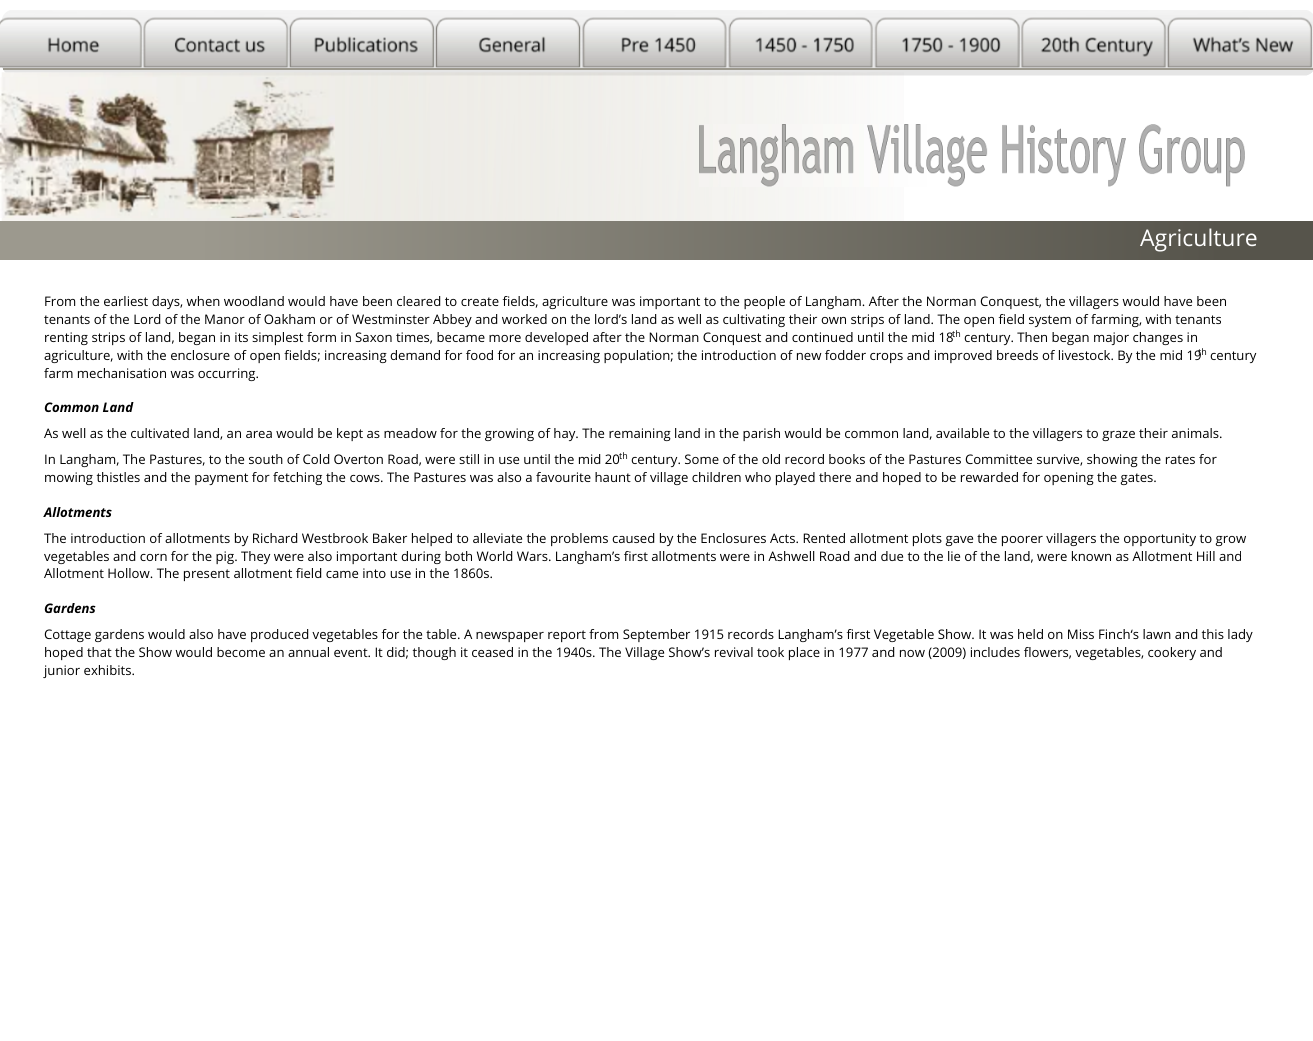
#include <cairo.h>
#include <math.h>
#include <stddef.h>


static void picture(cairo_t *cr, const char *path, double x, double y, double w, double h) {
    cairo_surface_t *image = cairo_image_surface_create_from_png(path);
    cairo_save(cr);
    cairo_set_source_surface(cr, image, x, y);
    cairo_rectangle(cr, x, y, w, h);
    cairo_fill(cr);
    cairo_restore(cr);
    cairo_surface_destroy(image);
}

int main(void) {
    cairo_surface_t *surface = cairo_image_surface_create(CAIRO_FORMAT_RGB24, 1313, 1041);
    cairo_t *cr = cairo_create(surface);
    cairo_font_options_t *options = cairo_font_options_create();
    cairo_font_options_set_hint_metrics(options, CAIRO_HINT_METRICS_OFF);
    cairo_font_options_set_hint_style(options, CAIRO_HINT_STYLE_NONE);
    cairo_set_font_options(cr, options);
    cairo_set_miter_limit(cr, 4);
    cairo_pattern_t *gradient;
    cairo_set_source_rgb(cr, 1, 1, 1);
    cairo_paint(cr);
    picture(cr, "img1.png", 1, 10, 1312, 66);
    picture(cr, "img2.png", 0, 17, 142, 51);
    picture(cr, "img3.png", 143, 17, 146, 51);
    picture(cr, "img4.png", 289, 17, 146, 51);
    picture(cr, "img5.png", 435, 17, 146, 51);
    picture(cr, "img6.png", 582, 17, 145, 51);
    picture(cr, "img7.png", 728, 17, 145, 51);
    picture(cr, "img8.png", 874, 17, 146, 51);
    picture(cr, "img9.png", 1021, 17, 146, 51);
    picture(cr, "img10.png", 1167, 17, 145, 51);
    cairo_set_source_rgb(cr, 0.612, 0.6, 0.557);
    cairo_rectangle(cr, 3, 68, 1310, 2);
    cairo_fill(cr);
    picture(cr, "img11.png", 1, 72, 903, 149);
    picture(cr, "img12.png", 0, 77, 335, 141);
    picture(cr, "img13.png", 699, 124, 546, 63);
    gradient = cairo_pattern_create_linear(0, 240, 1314, 240);
    cairo_pattern_add_color_stop_rgba(gradient, 0.15, 0.612, 0.6, 0.557, 1);
    cairo_pattern_add_color_stop_rgba(gradient, 0.93, 0.337, 0.329, 0.294, 1);
    cairo_set_source(cr, gradient);
    cairo_pattern_destroy(gradient);
    cairo_rectangle(cr, 0, 221, 1313, 39);
    cairo_fill(cr);
    cairo_select_font_face(cr, "Open Sans", CAIRO_FONT_SLANT_NORMAL, CAIRO_FONT_WEIGHT_NORMAL);
    cairo_set_font_size(cr, 23);
    cairo_set_source_rgb(cr, 1, 1, 1);
    cairo_move_to(cr, 1140, 246);
    cairo_show_text(cr, "Agriculture");
    cairo_set_font_size(cr, 13.15);
    cairo_set_source_rgb(cr, 0, 0, 0);
    cairo_move_to(cr, 44, 306);
    cairo_show_text(cr, "From the earliest days, when woodland would have been cleared to create fields, agriculture was important to the people of Langham. After the Norman Conquest, the villagers would have been");
    cairo_move_to(cr, 44, 324);
    cairo_show_text(cr, "tenants of the Lord of the Manor of Oakham or of Westminster Abbey and worked on the lord’s land as well as cultivating their own strips of land. The open field system of farming, with tenants");
    cairo_move_to(cr, 44, 342);
    cairo_show_text(cr, "renting strips of land, began in its simplest form in Saxon times, became more developed after the Norman Conquest and continued until the mid 18");
    cairo_set_font_size(cr, 9);
    cairo_move_to(cr, 952, 337);
    cairo_show_text(cr, "th");
    cairo_set_font_size(cr, 13.15);
    cairo_move_to(cr, 964, 342);
    cairo_show_text(cr, "century. Then began major changes in");
    cairo_move_to(cr, 44, 360);
    cairo_show_text(cr, "agriculture, with the enclosure of open fields; increasing demand for food for an increasing population; the introduction of new fodder crops and improved breeds of livestock. By the mid 19");
    cairo_set_font_size(cr, 9);
    cairo_move_to(cr, 1198, 355);
    cairo_show_text(cr, "th");
    cairo_set_font_size(cr, 13.15);
    cairo_move_to(cr, 1210, 360);
    cairo_show_text(cr, "century");
    cairo_move_to(cr, 44, 378);
    cairo_show_text(cr, "farm mechanisation was occurring.");
    cairo_select_font_face(cr, "Open Sans", CAIRO_FONT_SLANT_ITALIC, CAIRO_FONT_WEIGHT_BOLD);
    cairo_move_to(cr, 44, 412);
    cairo_show_text(cr, "Common Land");
    cairo_select_font_face(cr, "Open Sans", CAIRO_FONT_SLANT_NORMAL, CAIRO_FONT_WEIGHT_NORMAL);
    cairo_move_to(cr, 44, 438);
    cairo_show_text(cr, "As well as the cultivated land, an area would be kept as meadow for the growing of hay. The remaining land in the parish would be common land, available to the villagers to graze their animals.");
    cairo_move_to(cr, 44, 464);
    cairo_show_text(cr, "In Langham, The Pastures, to the south of Cold Overton Road, were still in use until the mid 20");
    cairo_set_font_size(cr, 9);
    cairo_move_to(cr, 619, 459);
    cairo_show_text(cr, "th");
    cairo_set_font_size(cr, 13.15);
    cairo_move_to(cr, 631, 464);
    cairo_show_text(cr, "century. Some of the old record books of the Pastures Committee survive, showing the rates for");
    cairo_move_to(cr, 44, 482);
    cairo_show_text(cr, "mowing thistles and the payment for fetching the cows. The Pastures was also a favourite haunt of village children who played there and hoped to be rewarded for opening the gates.");
    cairo_select_font_face(cr, "Open Sans", CAIRO_FONT_SLANT_ITALIC, CAIRO_FONT_WEIGHT_BOLD);
    cairo_move_to(cr, 44, 517);
    cairo_show_text(cr, "Allotments");
    cairo_select_font_face(cr, "Open Sans", CAIRO_FONT_SLANT_NORMAL, CAIRO_FONT_WEIGHT_NORMAL);
    cairo_move_to(cr, 44, 543);
    cairo_show_text(cr, "The introduction of allotments by Richard Westbrook Baker helped to alleviate the problems caused by the Enclosures Acts. Rented allotment plots gave the poorer villagers the opportunity to grow");
    cairo_move_to(cr, 44, 561);
    cairo_show_text(cr, "vegetables and corn for the pig. They were also important during both World Wars. Langham’s first allotments were in Ashwell Road and due to the lie of the land, were known as Allotment Hill and");
    cairo_move_to(cr, 44, 578);
    cairo_show_text(cr, "Allotment Hollow. The present allotment field came into use in the 1860s.");
    cairo_select_font_face(cr, "Open Sans", CAIRO_FONT_SLANT_ITALIC, CAIRO_FONT_WEIGHT_BOLD);
    cairo_move_to(cr, 44, 613);
    cairo_show_text(cr, "Gardens");
    cairo_select_font_face(cr, "Open Sans", CAIRO_FONT_SLANT_NORMAL, CAIRO_FONT_WEIGHT_NORMAL);
    cairo_move_to(cr, 44, 639);
    cairo_show_text(cr, "Cottage gardens would also have produced vegetables for the table. A newspaper report from September 1915 records Langham’s first Vegetable Show. It was held on Miss Finch‘s lawn and this lady");
    cairo_move_to(cr, 44, 657);
    cairo_show_text(cr, "hoped that the Show would become an annual event. It did; though it ceased in the 1940s. The Village Show’s revival took place in 1977 and now (2009) includes flowers, vegetables, cookery and");
    cairo_move_to(cr, 44, 675);
    cairo_show_text(cr, "junior exhibits.");
    cairo_surface_write_to_png(surface, "page.png");
    cairo_font_options_destroy(options);
    cairo_destroy(cr);
    cairo_surface_destroy(surface);
    return 0;
}
